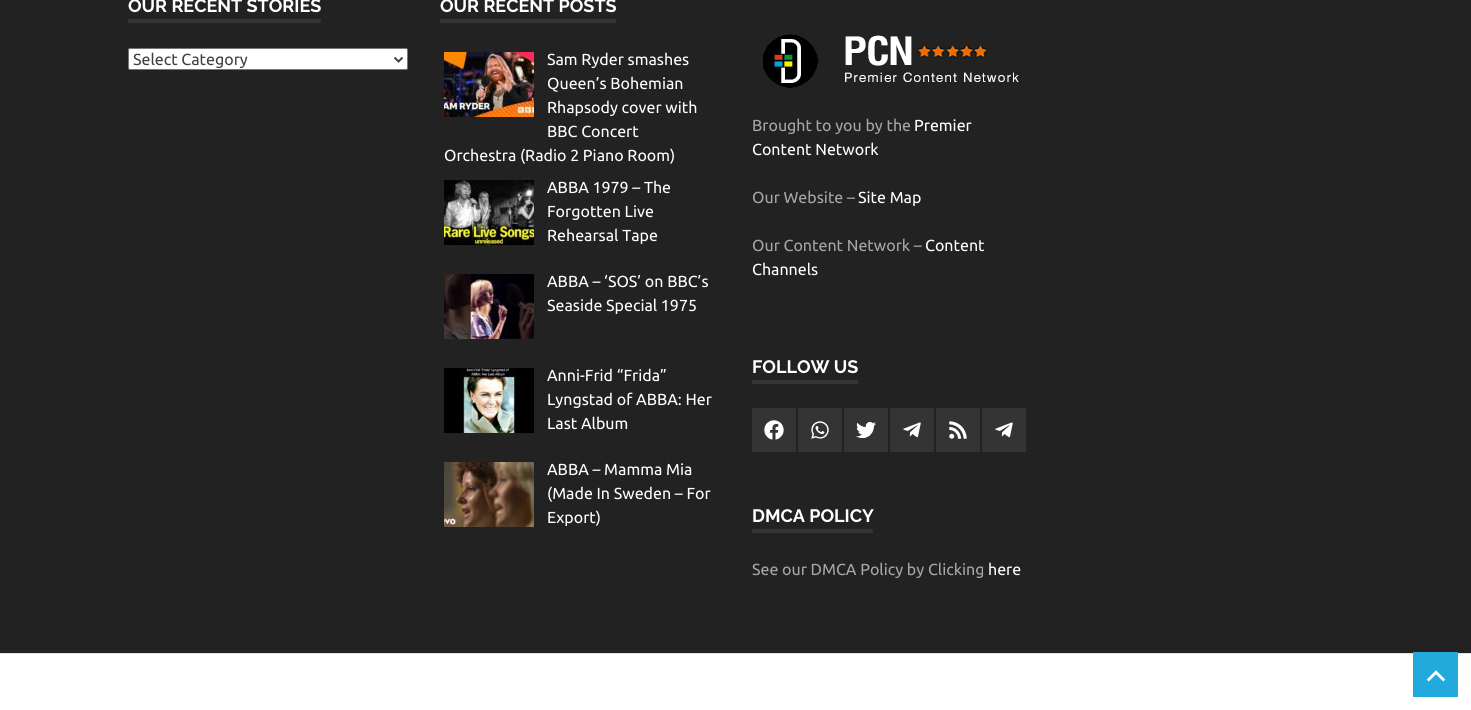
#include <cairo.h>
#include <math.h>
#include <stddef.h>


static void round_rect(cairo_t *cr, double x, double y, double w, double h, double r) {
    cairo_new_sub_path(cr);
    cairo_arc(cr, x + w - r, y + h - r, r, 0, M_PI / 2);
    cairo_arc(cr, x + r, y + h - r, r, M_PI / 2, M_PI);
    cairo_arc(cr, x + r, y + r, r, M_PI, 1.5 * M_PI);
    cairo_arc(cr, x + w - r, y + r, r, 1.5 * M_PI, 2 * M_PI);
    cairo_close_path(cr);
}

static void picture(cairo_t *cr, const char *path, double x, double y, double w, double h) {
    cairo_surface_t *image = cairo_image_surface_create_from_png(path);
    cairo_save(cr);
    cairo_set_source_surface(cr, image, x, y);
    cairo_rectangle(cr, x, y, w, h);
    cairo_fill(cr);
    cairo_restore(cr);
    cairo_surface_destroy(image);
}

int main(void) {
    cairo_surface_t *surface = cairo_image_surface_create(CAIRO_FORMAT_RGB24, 1471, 710);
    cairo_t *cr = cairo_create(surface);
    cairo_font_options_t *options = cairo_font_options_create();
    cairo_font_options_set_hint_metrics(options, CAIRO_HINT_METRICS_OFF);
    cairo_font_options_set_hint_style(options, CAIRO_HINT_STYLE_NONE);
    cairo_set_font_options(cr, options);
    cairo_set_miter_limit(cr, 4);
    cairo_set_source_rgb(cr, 1, 1, 1);
    cairo_paint(cr);
    cairo_set_source_rgb(cr, 0.133, 0.133, 0.133);
    cairo_rectangle(cr, 0, 0, 1471, 653);
    cairo_fill(cr);
    cairo_set_source_rgb(cr, 0.204, 0.204, 0.204);
    cairo_rectangle(cr, 128, 19, 193, 4);
    cairo_fill(cr);
    cairo_select_font_face(cr, "Raleway", CAIRO_FONT_SLANT_NORMAL, CAIRO_FONT_WEIGHT_BOLD);
    cairo_set_font_size(cr, 18);
    cairo_set_source_rgb(cr, 1, 1, 1);
    cairo_move_to(cr, 128, 12);
    cairo_show_text(cr, "OUR RECENT STORIES");
    round_rect(cr, 128.5, 48.5, 279, 21, 1.5);
    cairo_fill_preserve(cr);
    cairo_set_source_rgb(cr, 0.463, 0.463, 0.463);
    cairo_set_line_width(cr, 1);
    cairo_stroke(cr);
    cairo_new_path(cr);
    cairo_move_to(cr, 394.5, 57.5);
    cairo_line_to(cr, 398.5, 61.5);
    cairo_line_to(cr, 402.5, 57.5);
    cairo_set_source_rgb(cr, 0.251, 0.251, 0.251);
    cairo_set_line_width(cr, 2);
    cairo_stroke(cr);
    cairo_select_font_face(cr, "Ubuntu", CAIRO_FONT_SLANT_NORMAL, CAIRO_FONT_WEIGHT_NORMAL);
    cairo_set_font_size(cr, 16);
    cairo_move_to(cr, 133, 65);
    cairo_show_text(cr, "Select Category");
    cairo_set_source_rgb(cr, 0.204, 0.204, 0.204);
    cairo_rectangle(cr, 440, 19, 176, 4);
    cairo_fill(cr);
    cairo_select_font_face(cr, "Raleway", CAIRO_FONT_SLANT_NORMAL, CAIRO_FONT_WEIGHT_BOLD);
    cairo_set_font_size(cr, 18);
    cairo_set_source_rgb(cr, 1, 1, 1);
    cairo_move_to(cr, 440, 12);
    cairo_show_text(cr, "OUR RECENT POSTS");
    picture(cr, "img1.png", 444, 52, 90, 65);
    cairo_select_font_face(cr, "Ubuntu", CAIRO_FONT_SLANT_NORMAL, CAIRO_FONT_WEIGHT_NORMAL);
    cairo_set_font_size(cr, 16);
    cairo_move_to(cr, 547, 65);
    cairo_show_text(cr, "Sam Ryder smashes");
    cairo_move_to(cr, 547, 89);
    cairo_show_text(cr, "Queen’s Bohemian");
    cairo_move_to(cr, 547, 113);
    cairo_show_text(cr, "Rhapsody cover with");
    cairo_move_to(cr, 547, 137);
    cairo_show_text(cr, "BBC Concert");
    cairo_move_to(cr, 444, 161);
    cairo_show_text(cr, "Orchestra (Radio 2 Piano Room)");
    picture(cr, "img2.png", 444, 180, 90, 65);
    cairo_move_to(cr, 547, 193);
    cairo_show_text(cr, "ABBA 1979 – The");
    cairo_move_to(cr, 547, 217);
    cairo_show_text(cr, "Forgotten Live");
    cairo_move_to(cr, 547, 241);
    cairo_show_text(cr, "Rehearsal Tape");
    picture(cr, "img3.png", 444, 274, 90, 65);
    cairo_move_to(cr, 547, 287);
    cairo_show_text(cr, "ABBA – ‘SOS’ on BBC’s");
    cairo_move_to(cr, 547, 311);
    cairo_show_text(cr, "Seaside Special 1975");
    picture(cr, "img4.png", 444, 368, 90, 65);
    cairo_move_to(cr, 547, 381);
    cairo_show_text(cr, "Anni-Frid “Frida”");
    cairo_move_to(cr, 547, 405);
    cairo_show_text(cr, "Lyngstad of ABBA: Her");
    cairo_move_to(cr, 547, 429);
    cairo_show_text(cr, "Last Album");
    picture(cr, "img5.png", 444, 462, 90, 65);
    cairo_move_to(cr, 547, 475);
    cairo_show_text(cr, "ABBA – Mamma Mia");
    cairo_move_to(cr, 547, 499);
    cairo_show_text(cr, "(Made In Sweden – For");
    cairo_move_to(cr, 547, 523);
    cairo_show_text(cr, "Export)");
    picture(cr, "img6.png", 763, 34, 256, 54);
    cairo_set_source_rgb(cr, 0.655, 0.655, 0.655);
    cairo_move_to(cr, 752, 131);
    cairo_show_text(cr, "Brought to you by the");
    cairo_set_source_rgb(cr, 1, 1, 1);
    cairo_move_to(cr, 914, 131);
    cairo_show_text(cr, "Premier");
    cairo_move_to(cr, 752, 155);
    cairo_show_text(cr, "Content Network");
    cairo_set_source_rgb(cr, 0.655, 0.655, 0.655);
    cairo_move_to(cr, 752, 203);
    cairo_show_text(cr, "Our Website –");
    cairo_set_source_rgb(cr, 1, 1, 1);
    cairo_move_to(cr, 858, 203);
    cairo_show_text(cr, "Site Map");
    cairo_set_source_rgb(cr, 0.655, 0.655, 0.655);
    cairo_move_to(cr, 752, 251);
    cairo_show_text(cr, "Our Content Network –");
    cairo_set_source_rgb(cr, 1, 1, 1);
    cairo_move_to(cr, 925, 251);
    cairo_show_text(cr, "Content");
    cairo_move_to(cr, 752, 275);
    cairo_show_text(cr, "Channels");
    cairo_set_source_rgb(cr, 0.204, 0.204, 0.204);
    cairo_rectangle(cr, 752, 380, 106, 4);
    cairo_fill(cr);
    cairo_select_font_face(cr, "Raleway", CAIRO_FONT_SLANT_NORMAL, CAIRO_FONT_WEIGHT_BOLD);
    cairo_set_font_size(cr, 18);
    cairo_set_source_rgb(cr, 1, 1, 1);
    cairo_move_to(cr, 752, 373);
    cairo_show_text(cr, "FOLLOW US");
    cairo_set_source_rgb(cr, 0.204, 0.204, 0.204);
    cairo_rectangle(cr, 752, 408, 44, 44);
    cairo_fill(cr);
    picture(cr, "img7.png", 764, 420, 20, 20);
    cairo_rectangle(cr, 798, 408, 44, 44);
    cairo_fill(cr);
    picture(cr, "img8.png", 811, 421, 18, 18);
    cairo_rectangle(cr, 844, 408, 44, 44);
    cairo_fill(cr);
    picture(cr, "img9.png", 856, 422, 20, 16);
    cairo_rectangle(cr, 890, 408, 44, 44);
    cairo_fill(cr);
    picture(cr, "img10.png", 903, 422, 18, 16);
    cairo_rectangle(cr, 936, 408, 44, 44);
    cairo_fill(cr);
    picture(cr, "img11.png", 949, 421, 18, 18);
    cairo_rectangle(cr, 982, 408, 44, 44);
    cairo_fill(cr);
    picture(cr, "img10.png", 995, 422, 18, 16);
    cairo_rectangle(cr, 752, 529, 121, 4);
    cairo_fill(cr);
    cairo_set_source_rgb(cr, 1, 1, 1);
    cairo_move_to(cr, 752, 522);
    cairo_show_text(cr, "DMCA POLICY");
    cairo_select_font_face(cr, "Ubuntu", CAIRO_FONT_SLANT_NORMAL, CAIRO_FONT_WEIGHT_NORMAL);
    cairo_set_font_size(cr, 16);
    cairo_set_source_rgb(cr, 0.655, 0.655, 0.655);
    cairo_move_to(cr, 752, 575);
    cairo_show_text(cr, "See our DMCA Policy by Clicking");
    cairo_set_source_rgb(cr, 1, 1, 1);
    cairo_move_to(cr, 988, 575);
    cairo_show_text(cr, "here");
    cairo_set_source_rgb(cr, 0.878, 0.878, 0.878);
    cairo_rectangle(cr, 0, 653, 1471, 1);
    cairo_fill(cr);
    cairo_set_source_rgb(cr, 0.133, 0.667, 0.867);
    cairo_rectangle(cr, 1413, 652, 45, 45);
    cairo_fill(cr);
    picture(cr, "img12.png", 1426, 670, 20, 12);
    cairo_surface_write_to_png(surface, "page.png");
    cairo_font_options_destroy(options);
    cairo_destroy(cr);
    cairo_surface_destroy(surface);
    return 0;
}
